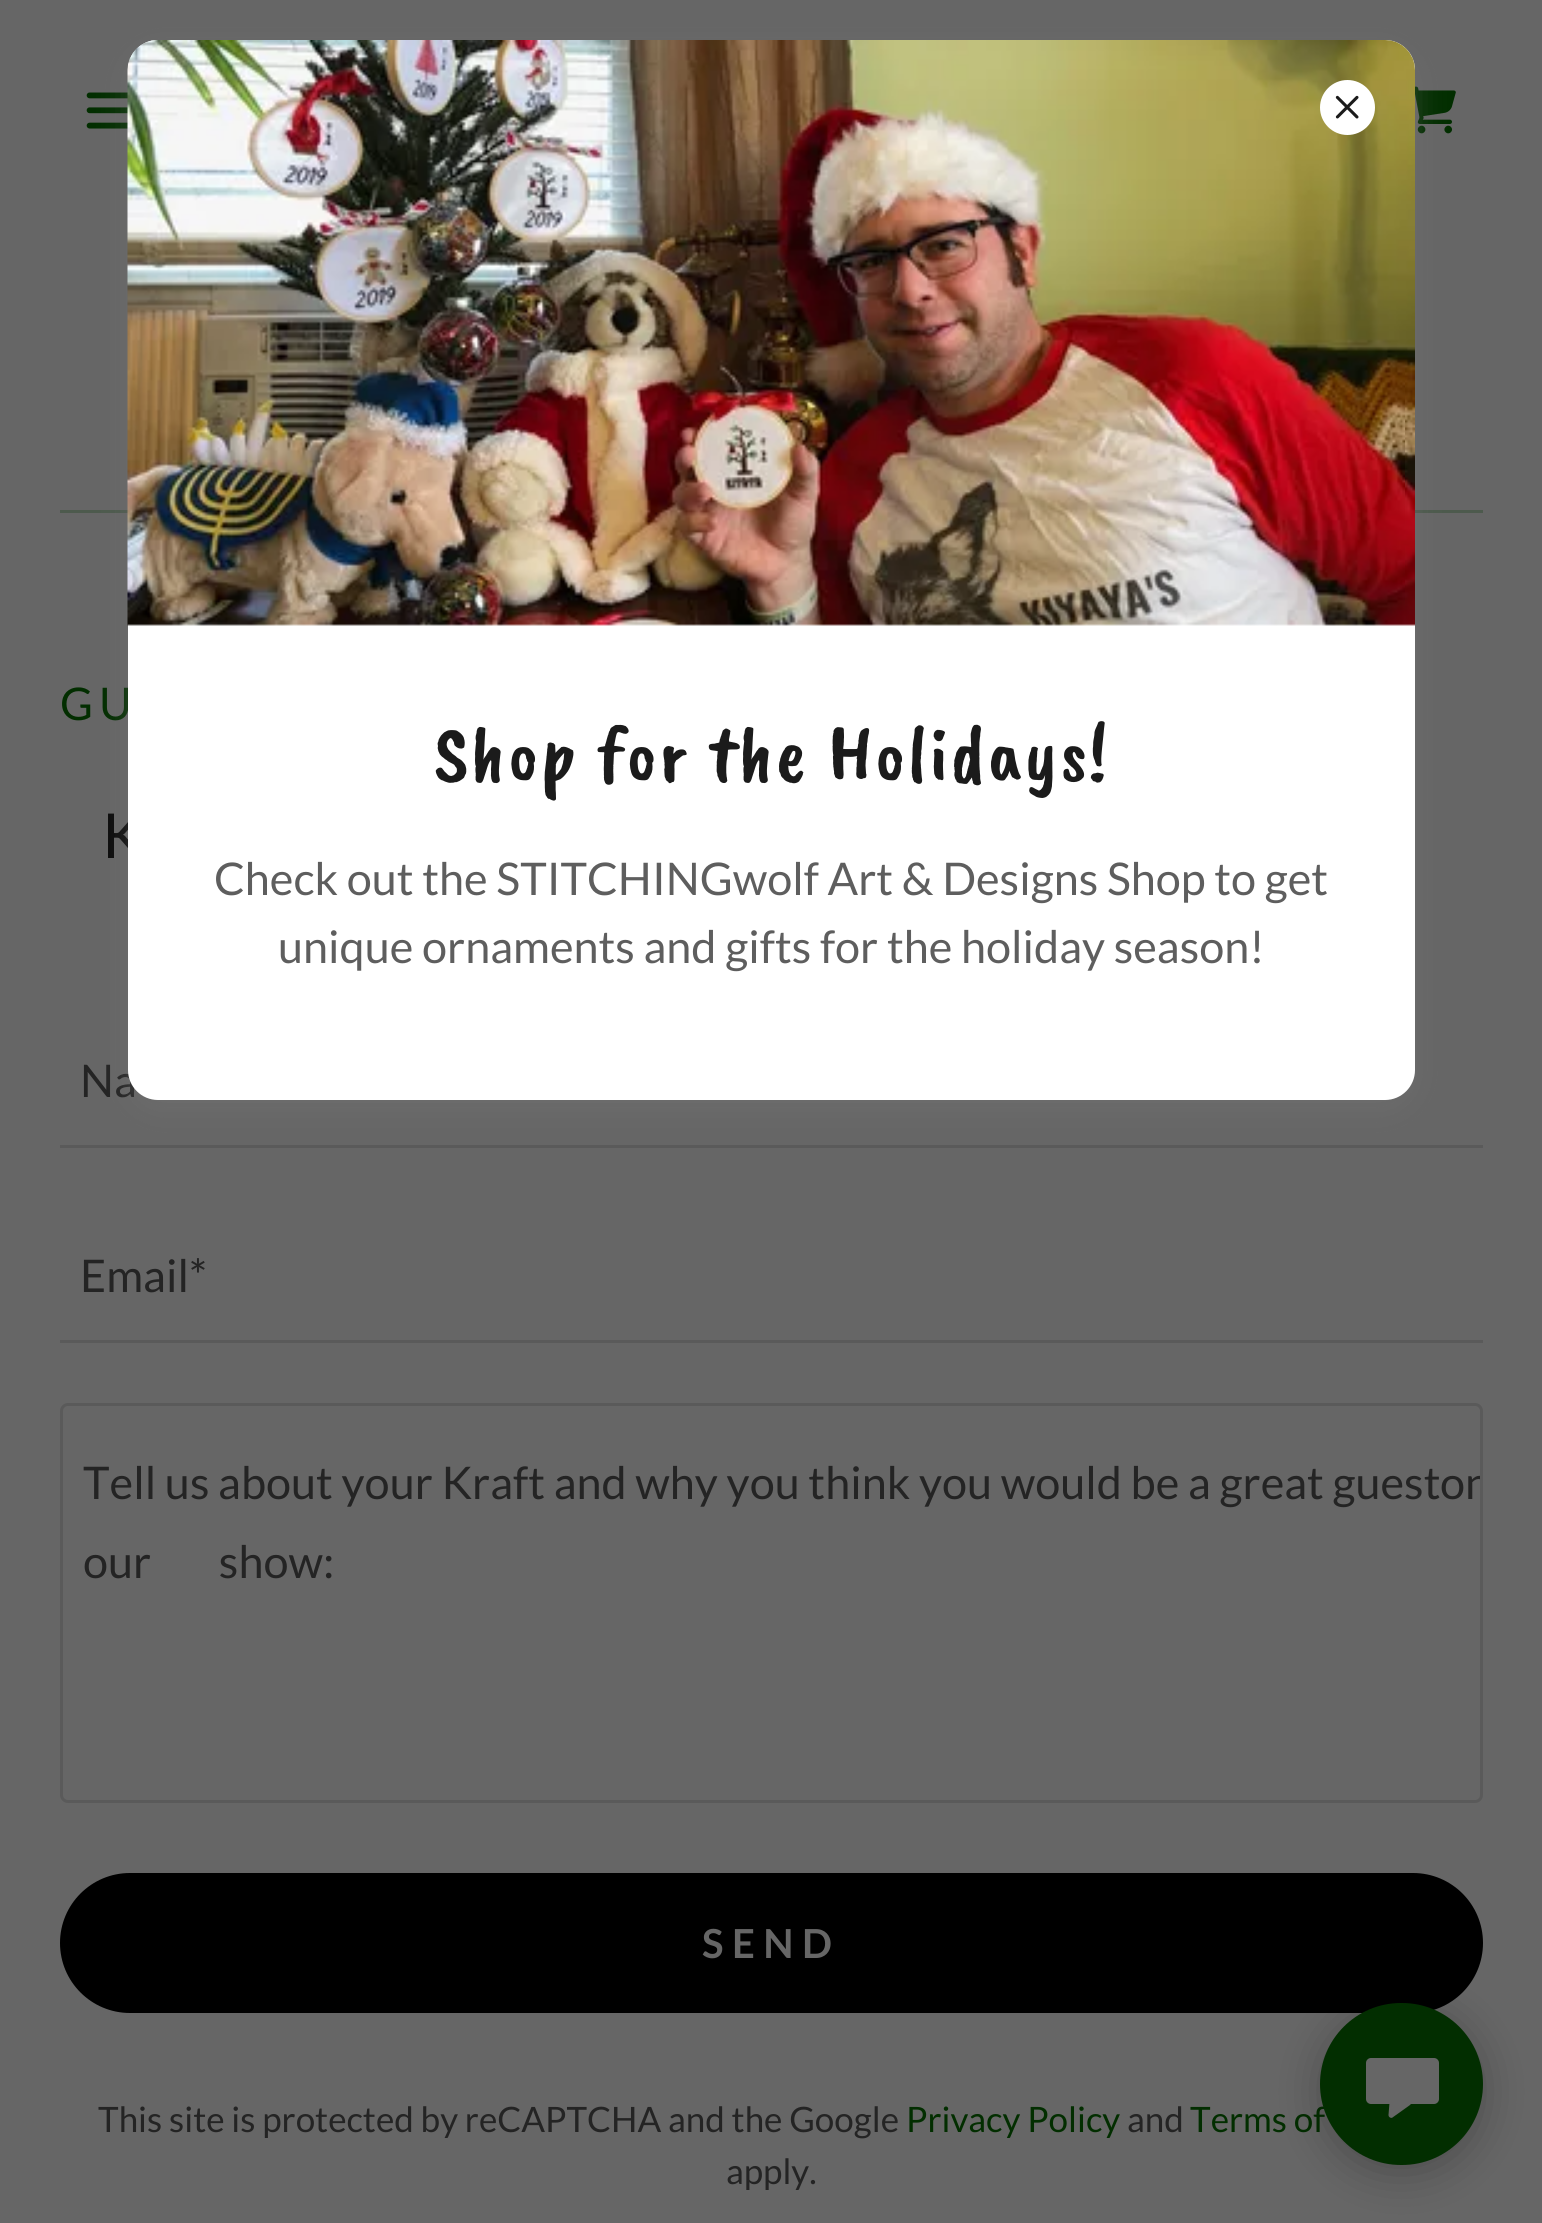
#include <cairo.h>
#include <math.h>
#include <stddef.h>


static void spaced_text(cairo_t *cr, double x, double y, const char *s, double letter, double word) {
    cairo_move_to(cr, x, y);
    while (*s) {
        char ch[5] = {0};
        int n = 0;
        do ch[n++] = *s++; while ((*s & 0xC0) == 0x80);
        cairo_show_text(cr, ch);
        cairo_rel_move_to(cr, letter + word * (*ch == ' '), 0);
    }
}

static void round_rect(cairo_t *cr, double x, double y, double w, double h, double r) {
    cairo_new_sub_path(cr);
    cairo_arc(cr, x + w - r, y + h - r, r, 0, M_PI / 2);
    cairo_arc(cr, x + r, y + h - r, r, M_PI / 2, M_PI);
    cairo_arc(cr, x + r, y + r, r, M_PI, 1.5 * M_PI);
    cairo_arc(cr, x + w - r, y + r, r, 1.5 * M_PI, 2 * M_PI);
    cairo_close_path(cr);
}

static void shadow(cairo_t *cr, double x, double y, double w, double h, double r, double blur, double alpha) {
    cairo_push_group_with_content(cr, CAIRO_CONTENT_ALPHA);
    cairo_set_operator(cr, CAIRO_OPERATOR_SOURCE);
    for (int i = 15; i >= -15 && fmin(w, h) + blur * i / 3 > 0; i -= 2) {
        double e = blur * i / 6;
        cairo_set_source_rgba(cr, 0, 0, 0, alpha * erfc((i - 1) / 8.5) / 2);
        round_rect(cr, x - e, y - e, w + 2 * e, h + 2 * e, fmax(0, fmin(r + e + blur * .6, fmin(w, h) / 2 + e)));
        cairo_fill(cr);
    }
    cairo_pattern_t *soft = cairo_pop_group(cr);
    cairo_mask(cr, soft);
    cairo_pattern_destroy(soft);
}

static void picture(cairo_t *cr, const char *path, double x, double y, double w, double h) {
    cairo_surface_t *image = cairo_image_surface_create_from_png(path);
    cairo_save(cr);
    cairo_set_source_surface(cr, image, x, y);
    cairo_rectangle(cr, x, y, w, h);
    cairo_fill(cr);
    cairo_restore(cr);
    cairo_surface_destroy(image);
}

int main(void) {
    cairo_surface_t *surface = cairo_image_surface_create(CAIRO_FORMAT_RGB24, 1542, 2223);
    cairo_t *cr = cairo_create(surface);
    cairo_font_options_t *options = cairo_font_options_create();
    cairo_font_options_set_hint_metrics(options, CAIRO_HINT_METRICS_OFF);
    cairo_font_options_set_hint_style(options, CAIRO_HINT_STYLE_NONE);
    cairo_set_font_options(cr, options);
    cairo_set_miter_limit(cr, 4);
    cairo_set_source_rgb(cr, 0.4, 0.4, 0.4);
    cairo_paint(cr);
    picture(cr, "img1.png", 86, 92, 42, 37);
    picture(cr, "img2.png", 1415, 86, 41, 48);
    cairo_set_source_rgb(cr, 0.302, 0.353, 0.302);
    cairo_rectangle(cr, 60, 510, 1423, 3);
    cairo_fill(cr);
    cairo_select_font_face(cr, "Lato", CAIRO_FONT_SLANT_NORMAL, CAIRO_FONT_WEIGHT_NORMAL);
    cairo_set_font_size(cr, 45);
    cairo_set_source_rgb(cr, 0.008, 0.18, 0);
    spaced_text(cr, 60, 720, "GU", 6, 0);
    cairo_set_font_size(cr, 62);
    cairo_set_source_rgb(cr, 0.043, 0.043, 0.043);
    spaced_text(cr, 102, 858, "K", 3, 0);
    cairo_set_font_size(cr, 45);
    cairo_set_source_rgb(cr, 0.141, 0.141, 0.141);
    cairo_move_to(cr, 80, 1097);
    cairo_show_text(cr, "Na");
    cairo_set_source_rgb(cr, 0.353, 0.353, 0.353);
    cairo_rectangle(cr, 60, 1145, 1423, 3);
    cairo_fill(cr);
    cairo_set_source_rgb(cr, 0.141, 0.141, 0.141);
    cairo_move_to(cr, 80, 1292);
    cairo_show_text(cr, "Email*");
    cairo_set_source_rgb(cr, 0.353, 0.353, 0.353);
    cairo_rectangle(cr, 60, 1340, 1423, 3);
    cairo_fill(cr);
    round_rect(cr, 61.5, 1404.5, 1420, 397, 6.5);
    cairo_set_line_width(cr, 3);
    cairo_stroke(cr);
    cairo_set_source_rgb(cr, 0.141, 0.141, 0.141);
    cairo_move_to(cr, 83, 1499);
    cairo_show_text(cr, "Tell us about your Kraft and why you think you would be a great guest");
    cairo_save(cr);
    round_rect(cr, 63, 1405, 1417, 395, 5);
    cairo_clip(cr);
    cairo_move_to(cr, 1440, 1499);
    cairo_show_text(cr, "on");
    cairo_restore(cr);
    spaced_text(cr, 83, 1578, "our show:", 0, 59);
    cairo_set_source_rgb(cr, 0, 0, 0);
    round_rect(cr, 60, 1873, 1423, 140, 70);
    cairo_fill(cr);
    cairo_select_font_face(cr, "Lato", CAIRO_FONT_SLANT_NORMAL, CAIRO_FONT_WEIGHT_BOLD);
    cairo_set_font_size(cr, 40);
    cairo_set_source_rgb(cr, 0.4, 0.4, 0.4);
    spaced_text(cr, 702, 1958, "SEND", 8.5, 0);
    cairo_select_font_face(cr, "Lato", CAIRO_FONT_SLANT_NORMAL, CAIRO_FONT_WEIGHT_NORMAL);
    cairo_set_font_size(cr, 35);
    cairo_set_source_rgb(cr, 0.141, 0.141, 0.141);
    cairo_move_to(cr, 98, 2132);
    cairo_show_text(cr, "This site is protected by reCAPTCHA and the Google");
    cairo_set_source_rgb(cr, 0.008, 0.18, 0);
    cairo_move_to(cr, 906, 2132);
    cairo_show_text(cr, "Privacy Policy");
    cairo_set_source_rgb(cr, 0.141, 0.141, 0.141);
    cairo_move_to(cr, 1127, 2132);
    cairo_show_text(cr, "and");
    cairo_set_source_rgb(cr, 0.008, 0.18, 0);
    cairo_move_to(cr, 1190, 2132);
    cairo_show_text(cr, "Terms of");
    cairo_set_source_rgb(cr, 0.141, 0.141, 0.141);
    cairo_move_to(cr, 726, 2184);
    cairo_show_text(cr, "apply.");
    cairo_set_source_rgb(cr, 0.459, 0.459, 0.459);
    shadow(cr, 128, 50, 1287, 1060, 30, 15, 0.4);
    cairo_set_source_rgb(cr, 1, 1, 1);
    round_rect(cr, 128, 40, 1287, 1060, 30);
    cairo_fill(cr);
    picture(cr, "img4.png", 127, 40, 1288, 586);
    cairo_arc(cr, 1347.5, 107.5, 27.5, 0, 2 * M_PI);
    cairo_fill(cr);
    picture(cr, "img3.png", 1335, 95, 24, 24);
    cairo_select_font_face(cr, "Caveat Brush", CAIRO_FONT_SLANT_NORMAL, CAIRO_FONT_WEIGHT_NORMAL);
    cairo_set_font_size(cr, 80);
    cairo_set_source_rgb(cr, 0.106, 0.106, 0.106);
    spaced_text(cr, 434, 780, "Shop for the Holidays!", 2.5, 0);
    cairo_select_font_face(cr, "Lato", CAIRO_FONT_SLANT_NORMAL, CAIRO_FONT_WEIGHT_NORMAL);
    cairo_set_font_size(cr, 45);
    cairo_set_source_rgb(cr, 0.369, 0.369, 0.369);
    cairo_move_to(cr, 214, 895);
    cairo_show_text(cr, "Check out the STITCHINGwolf Art & Designs Shop to get");
    cairo_move_to(cr, 278, 963);
    cairo_show_text(cr, "unique ornaments and gifts for the holiday season!");
    cairo_set_source_rgb(cr, 0, 0, 0);
    shadow(cr, 1320, 2010, 163, 163, 81.5, 22.5, 0.25);
    cairo_set_source_rgb(cr, 0.008, 0.18, 0);
    round_rect(cr, 1320, 2003, 163, 162, 81);
    cairo_fill(cr);
    cairo_set_source_rgb(cr, 0.4, 0.4, 0.4);
    round_rect(cr, 1366, 2058, 73, 46, 5);
    cairo_fill(cr);
    cairo_new_path(cr);
    cairo_move_to(cr, 1388.5, 2115);
    cairo_line_to(cr, 1389.5, 2102.5);
    cairo_curve_to(cr, 1389.5, 2101.5, 1391, 2100.5, 1392, 2100.5);
    cairo_line_to(cr, 1408.5, 2100.5);
    cairo_curve_to(cr, 1411, 2100.5, 1412, 2103.5, 1410, 2105);
    cairo_line_to(cr, 1392.5, 2117.5);
    cairo_curve_to(cr, 1392, 2118, 1391, 2118, 1390, 2117.5);
    cairo_curve_to(cr, 1389, 2117, 1388.5, 2116, 1388.5, 2115);
    cairo_close_path(cr);
    cairo_fill(cr);
    cairo_surface_write_to_png(surface, "page.png");
    cairo_font_options_destroy(options);
    cairo_destroy(cr);
    cairo_surface_destroy(surface);
    return 0;
}
